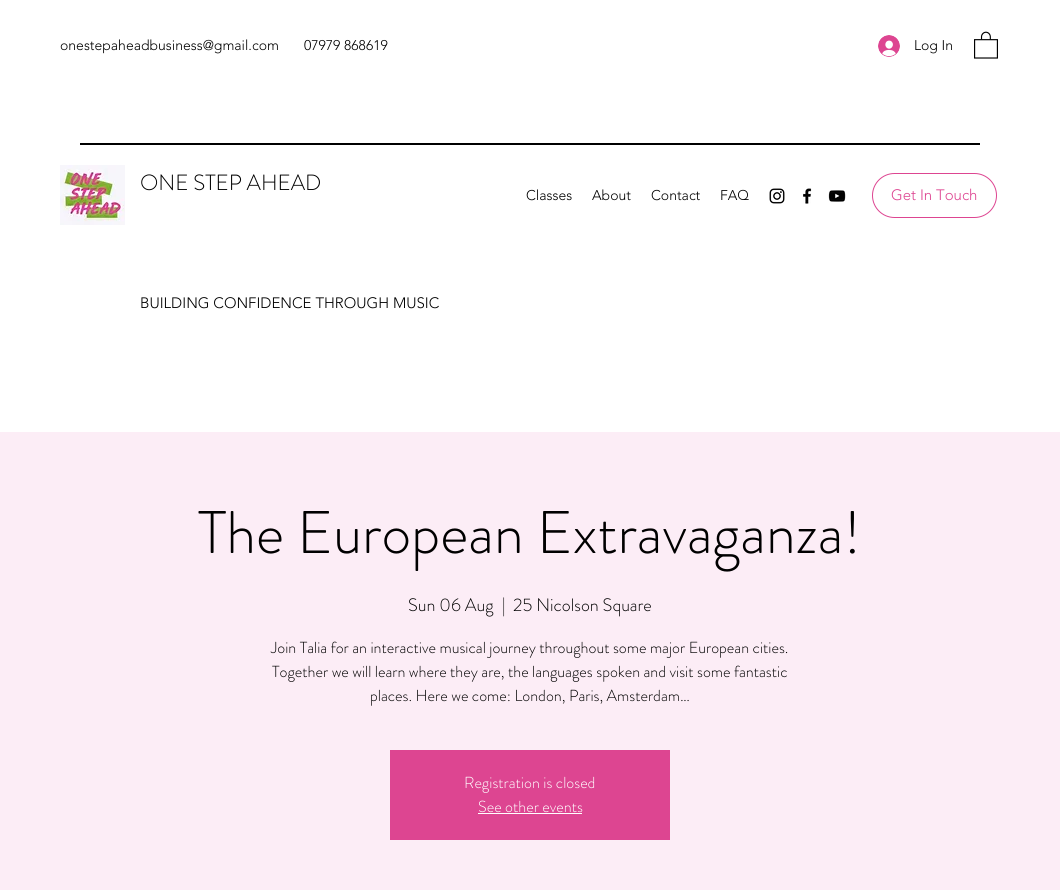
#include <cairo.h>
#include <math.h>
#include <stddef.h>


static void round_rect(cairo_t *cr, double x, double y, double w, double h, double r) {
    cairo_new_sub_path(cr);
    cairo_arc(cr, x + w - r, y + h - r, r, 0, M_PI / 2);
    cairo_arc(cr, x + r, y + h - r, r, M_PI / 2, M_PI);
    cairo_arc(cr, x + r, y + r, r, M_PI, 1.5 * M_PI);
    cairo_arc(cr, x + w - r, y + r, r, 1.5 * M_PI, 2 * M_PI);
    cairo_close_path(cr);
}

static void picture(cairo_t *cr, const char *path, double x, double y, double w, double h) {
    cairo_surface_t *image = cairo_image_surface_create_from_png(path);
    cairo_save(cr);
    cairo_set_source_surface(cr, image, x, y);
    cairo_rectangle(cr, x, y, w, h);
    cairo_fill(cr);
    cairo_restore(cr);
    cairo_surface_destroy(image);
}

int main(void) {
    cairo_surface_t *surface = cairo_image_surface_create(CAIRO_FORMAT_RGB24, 1060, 890);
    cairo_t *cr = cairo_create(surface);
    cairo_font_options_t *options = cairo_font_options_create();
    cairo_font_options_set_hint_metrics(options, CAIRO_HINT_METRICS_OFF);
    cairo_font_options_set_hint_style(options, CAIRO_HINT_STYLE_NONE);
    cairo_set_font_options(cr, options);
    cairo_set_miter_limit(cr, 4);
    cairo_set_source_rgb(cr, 1, 1, 1);
    cairo_paint(cr);
    cairo_select_font_face(cr, "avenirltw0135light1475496 Light", CAIRO_FONT_SLANT_NORMAL, CAIRO_FONT_WEIGHT_NORMAL);
    cairo_set_font_size(cr, 14);
    cairo_set_source_rgb(cr, 0, 0, 0);
    cairo_move_to(cr, 60, 50);
    cairo_show_text(cr, "onestepaheadbusiness@gmail.com");
    cairo_move_to(cr, 304, 50);
    cairo_show_text(cr, "07979 868619");
    picture(cr, "img1.png", 878, 35, 22, 22);
    cairo_move_to(cr, 914, 50);
    cairo_show_text(cr, "Log In");
    picture(cr, "img2.png", 974, 31, 24, 28);
    cairo_rectangle(cr, 80, 143, 900, 2);
    cairo_fill(cr);
    picture(cr, "img3.png", 60, 165, 65, 60);
    cairo_select_font_face(cr, "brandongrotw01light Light", CAIRO_FONT_SLANT_NORMAL, CAIRO_FONT_WEIGHT_NORMAL);
    cairo_set_font_size(cr, 22);
    cairo_move_to(cr, 140, 190);
    cairo_show_text(cr, "ONE STEP AHEAD");
    cairo_select_font_face(cr, "avenirltw0135light1475496 Light", CAIRO_FONT_SLANT_NORMAL, CAIRO_FONT_WEIGHT_NORMAL);
    cairo_set_font_size(cr, 15);
    cairo_move_to(cr, 140, 308);
    cairo_show_text(cr, "BUILDING CONFIDENCE THROUGH MUSIC");
    cairo_set_font_size(cr, 14);
    cairo_move_to(cr, 526, 200);
    cairo_show_text(cr, "Classes");
    cairo_move_to(cr, 592, 200);
    cairo_show_text(cr, "About");
    cairo_move_to(cr, 651, 200);
    cairo_show_text(cr, "Contact");
    cairo_move_to(cr, 720, 200);
    cairo_show_text(cr, "FAQ");
    picture(cr, "img4.png", 769, 188, 16, 16);
    picture(cr, "img5.png", 803, 188, 9, 16);
    picture(cr, "img6.png", 828, 190, 18, 12);
    round_rect(cr, 872.5, 173.5, 124, 44, 22);
    cairo_set_source_rgb(cr, 0.867, 0.271, 0.569);
    cairo_set_line_width(cr, 1);
    cairo_stroke(cr);
    cairo_set_font_size(cr, 15);
    cairo_move_to(cr, 891, 200);
    cairo_show_text(cr, "Get In Touch");
    cairo_set_source_rgb(cr, 0.988, 0.929, 0.961);
    cairo_rectangle(cr, 0, 432, 1060, 458);
    cairo_fill(cr);
    cairo_select_font_face(cr, "brandongrotw01light Light", CAIRO_FONT_SLANT_NORMAL, CAIRO_FONT_WEIGHT_NORMAL);
    cairo_set_font_size(cr, 60);
    cairo_set_source_rgb(cr, 0, 0, 0);
    cairo_move_to(cr, 198, 553);
    cairo_show_text(cr, "The European Extravaganza!");
    cairo_set_font_size(cr, 18);
    cairo_move_to(cr, 408, 611);
    cairo_show_text(cr, "Sun 06 Aug");
    cairo_move_to(cr, 502, 611);
    cairo_show_text(cr, "|");
    cairo_move_to(cr, 513, 611);
    cairo_show_text(cr, "25 Nicolson Square");
    cairo_set_font_size(cr, 16);
    cairo_move_to(cr, 271, 653);
    cairo_show_text(cr, "Join Talia for an interactive musical journey throughout some major European cities.");
    cairo_move_to(cr, 272, 677);
    cairo_show_text(cr, "Together we will learn where they are, the languages spoken and visit some fantastic");
    cairo_move_to(cr, 370, 701);
    cairo_show_text(cr, "places. Here we come: London, Paris, Amsterdam…");
    cairo_set_source_rgb(cr, 0.867, 0.271, 0.569);
    cairo_rectangle(cr, 390, 750, 280, 90);
    cairo_fill(cr);
    cairo_set_source_rgb(cr, 1, 1, 1);
    cairo_move_to(cr, 464, 788);
    cairo_show_text(cr, "Registration is closed");
    cairo_move_to(cr, 478, 812);
    cairo_show_text(cr, "See other events");
    cairo_rectangle(cr, 478, 813, 104, 1);
    cairo_fill(cr);
    cairo_surface_write_to_png(surface, "page.png");
    cairo_font_options_destroy(options);
    cairo_destroy(cr);
    cairo_surface_destroy(surface);
    return 0;
}
